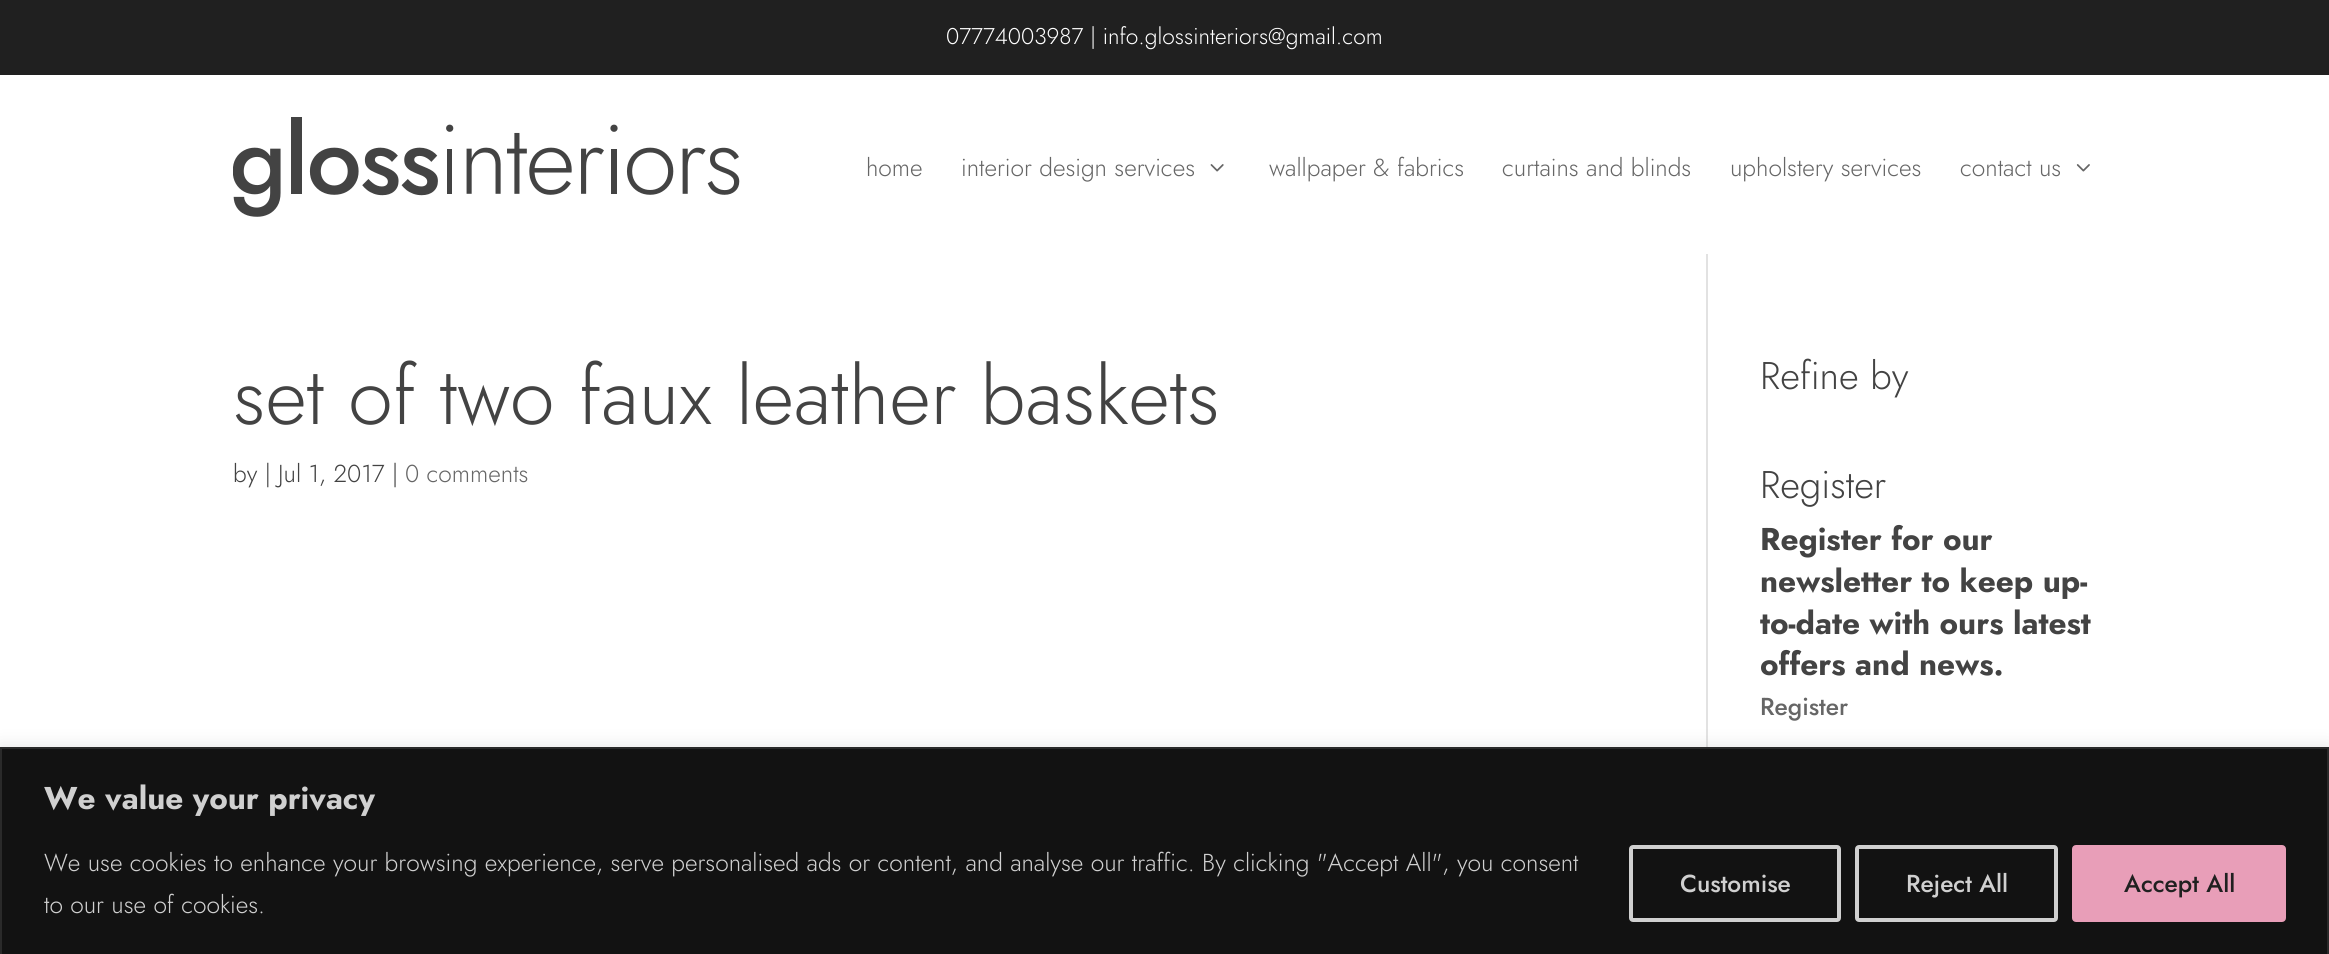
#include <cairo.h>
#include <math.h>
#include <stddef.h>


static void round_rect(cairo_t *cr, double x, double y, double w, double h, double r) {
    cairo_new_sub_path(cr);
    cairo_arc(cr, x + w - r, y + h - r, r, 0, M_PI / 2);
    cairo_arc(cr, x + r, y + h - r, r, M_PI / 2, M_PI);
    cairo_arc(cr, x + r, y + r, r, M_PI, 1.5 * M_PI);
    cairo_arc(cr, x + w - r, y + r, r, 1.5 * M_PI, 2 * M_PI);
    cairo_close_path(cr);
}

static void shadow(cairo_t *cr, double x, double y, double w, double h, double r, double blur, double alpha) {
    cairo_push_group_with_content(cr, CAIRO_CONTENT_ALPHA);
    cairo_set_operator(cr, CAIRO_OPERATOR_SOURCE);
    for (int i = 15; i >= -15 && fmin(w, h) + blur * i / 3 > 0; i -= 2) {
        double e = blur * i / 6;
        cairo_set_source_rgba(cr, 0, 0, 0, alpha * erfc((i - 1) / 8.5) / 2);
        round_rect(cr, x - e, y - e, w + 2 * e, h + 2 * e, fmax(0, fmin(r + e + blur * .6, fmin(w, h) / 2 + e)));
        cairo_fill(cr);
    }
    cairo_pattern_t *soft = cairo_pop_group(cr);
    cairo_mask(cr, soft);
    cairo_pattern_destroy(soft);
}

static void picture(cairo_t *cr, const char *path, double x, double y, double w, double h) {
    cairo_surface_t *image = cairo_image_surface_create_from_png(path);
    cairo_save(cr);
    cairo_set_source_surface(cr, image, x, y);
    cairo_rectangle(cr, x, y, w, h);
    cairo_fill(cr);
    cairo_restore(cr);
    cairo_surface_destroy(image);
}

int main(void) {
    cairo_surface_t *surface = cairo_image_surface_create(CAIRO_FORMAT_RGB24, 2329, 954);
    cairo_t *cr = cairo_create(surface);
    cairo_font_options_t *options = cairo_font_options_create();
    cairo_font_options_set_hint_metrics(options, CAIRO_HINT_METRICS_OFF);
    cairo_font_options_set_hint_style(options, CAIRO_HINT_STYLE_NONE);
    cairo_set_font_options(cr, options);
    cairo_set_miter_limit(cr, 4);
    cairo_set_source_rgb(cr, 1, 1, 1);
    cairo_paint(cr);
    cairo_set_source_rgb(cr, 0.125, 0.125, 0.125);
    cairo_rectangle(cr, 0, 0, 2329, 75);
    cairo_fill(cr);
    cairo_select_font_face(cr, "Jost Light", CAIRO_FONT_SLANT_NORMAL, CAIRO_FONT_WEIGHT_NORMAL);
    cairo_set_font_size(cr, 22.75);
    cairo_set_source_rgb(cr, 1, 1, 1);
    cairo_move_to(cr, 946, 44);
    cairo_show_text(cr, "07774003987 | info.glossinteriors@gmail.com");
    picture(cr, "img1.png", 233, 117, 507, 100);
    cairo_set_font_size(cr, 24.5);
    cairo_set_source_rgb(cr, 0.4, 0.4, 0.4);
    cairo_move_to(cr, 866, 176);
    cairo_show_text(cr, "home");
    cairo_move_to(cr, 961, 176);
    cairo_show_text(cr, "interior design services");
    picture(cr, "img2.png", 1210, 164, 14, 8);
    cairo_move_to(cr, 1269, 176);
    cairo_show_text(cr, "wallpaper & fabrics");
    cairo_move_to(cr, 1502, 176);
    cairo_show_text(cr, "curtains and blinds");
    cairo_move_to(cr, 1730, 176);
    cairo_show_text(cr, "upholstery services");
    cairo_move_to(cr, 1960, 176);
    cairo_show_text(cr, "contact us");
    picture(cr, "img3.png", 2076, 164, 14, 8);
    cairo_set_source_rgb(cr, 0.886, 0.886, 0.886);
    cairo_rectangle(cr, 1706, 254, 2, 493);
    cairo_fill(cr);
    cairo_set_font_size(cr, 80.5);
    cairo_set_source_rgb(cr, 0.263, 0.263, 0.263);
    cairo_move_to(cr, 233, 424);
    cairo_show_text(cr, "set of two faux leather baskets");
    cairo_set_font_size(cr, 24.5);
    cairo_move_to(cr, 233, 482);
    cairo_show_text(cr, "by | Jul 1, 2017 |");
    cairo_set_source_rgb(cr, 0.4, 0.4, 0.4);
    cairo_move_to(cr, 405, 482);
    cairo_show_text(cr, "0 comments");
    cairo_set_font_size(cr, 38.5);
    cairo_set_source_rgb(cr, 0.263, 0.263, 0.263);
    cairo_move_to(cr, 1760, 389);
    cairo_show_text(cr, "Refine by");
    cairo_move_to(cr, 1760, 498);
    cairo_show_text(cr, "Register");
    cairo_select_font_face(cr, "Jost", CAIRO_FONT_SLANT_NORMAL, CAIRO_FONT_WEIGHT_BOLD);
    cairo_set_font_size(cr, 31.5);
    cairo_move_to(cr, 1760, 550);
    cairo_show_text(cr, "Register for our");
    cairo_move_to(cr, 1760, 592);
    cairo_show_text(cr, "newsletter to keep up-");
    cairo_move_to(cr, 1760, 634);
    cairo_show_text(cr, "to-date with ours latest");
    cairo_move_to(cr, 1760, 675);
    cairo_show_text(cr, "offers and news.");
    cairo_select_font_face(cr, "Jost Medium", CAIRO_FONT_SLANT_NORMAL, CAIRO_FONT_WEIGHT_NORMAL);
    cairo_set_font_size(cr, 24.5);
    cairo_set_source_rgb(cr, 0.4, 0.4, 0.4);
    cairo_move_to(cr, 1760, 715);
    cairo_show_text(cr, "Register");
    cairo_set_source_rgb(cr, 0.675, 0.671, 0.671);
    shadow(cr, 0, 746, 2329, 208, 0, 9, 0.3);
    cairo_set_source_rgb(cr, 0.071, 0.071, 0.071);
    cairo_rectangle(cr, 1, 748, 2327, 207);
    cairo_fill_preserve(cr);
    cairo_set_source_rgb(cr, 0.165, 0.165, 0.165);
    cairo_stroke(cr);
    cairo_select_font_face(cr, "Jost", CAIRO_FONT_SLANT_NORMAL, CAIRO_FONT_WEIGHT_BOLD);
    cairo_set_font_size(cr, 31.5);
    cairo_set_source_rgb(cr, 0.816, 0.816, 0.816);
    cairo_move_to(cr, 44, 809);
    cairo_show_text(cr, "We value your privacy");
    cairo_select_font_face(cr, "Jost Light", CAIRO_FONT_SLANT_NORMAL, CAIRO_FONT_WEIGHT_NORMAL);
    cairo_set_font_size(cr, 24.5);
    cairo_move_to(cr, 44, 871);
    cairo_show_text(cr, "We use cookies to enhance your browsing experience, serve personalised ads or content, and analyse our traffic. By clicking \"Accept All\", you consent");
    cairo_move_to(cr, 44, 913);
    cairo_show_text(cr, "to our use of cookies.");
    round_rect(cr, 1631, 847, 208, 73, 2);
    cairo_set_line_width(cr, 4);
    cairo_stroke(cr);
    cairo_select_font_face(cr, "Jost Medium", CAIRO_FONT_SLANT_NORMAL, CAIRO_FONT_WEIGHT_NORMAL);
    cairo_move_to(cr, 1680, 892);
    cairo_show_text(cr, "Customise");
    round_rect(cr, 1857, 847, 199, 73, 2);
    cairo_stroke(cr);
    cairo_move_to(cr, 1906, 892);
    cairo_show_text(cr, "Reject All");
    cairo_set_source_rgb(cr, 0.91, 0.62, 0.722);
    round_rect(cr, 2074, 847, 210, 73, 2);
    cairo_fill_preserve(cr);
    cairo_stroke(cr);
    cairo_set_source_rgb(cr, 0.125, 0.125, 0.125);
    cairo_move_to(cr, 2124, 892);
    cairo_show_text(cr, "Accept All");
    cairo_surface_write_to_png(surface, "page.png");
    cairo_font_options_destroy(options);
    cairo_destroy(cr);
    cairo_surface_destroy(surface);
    return 0;
}
